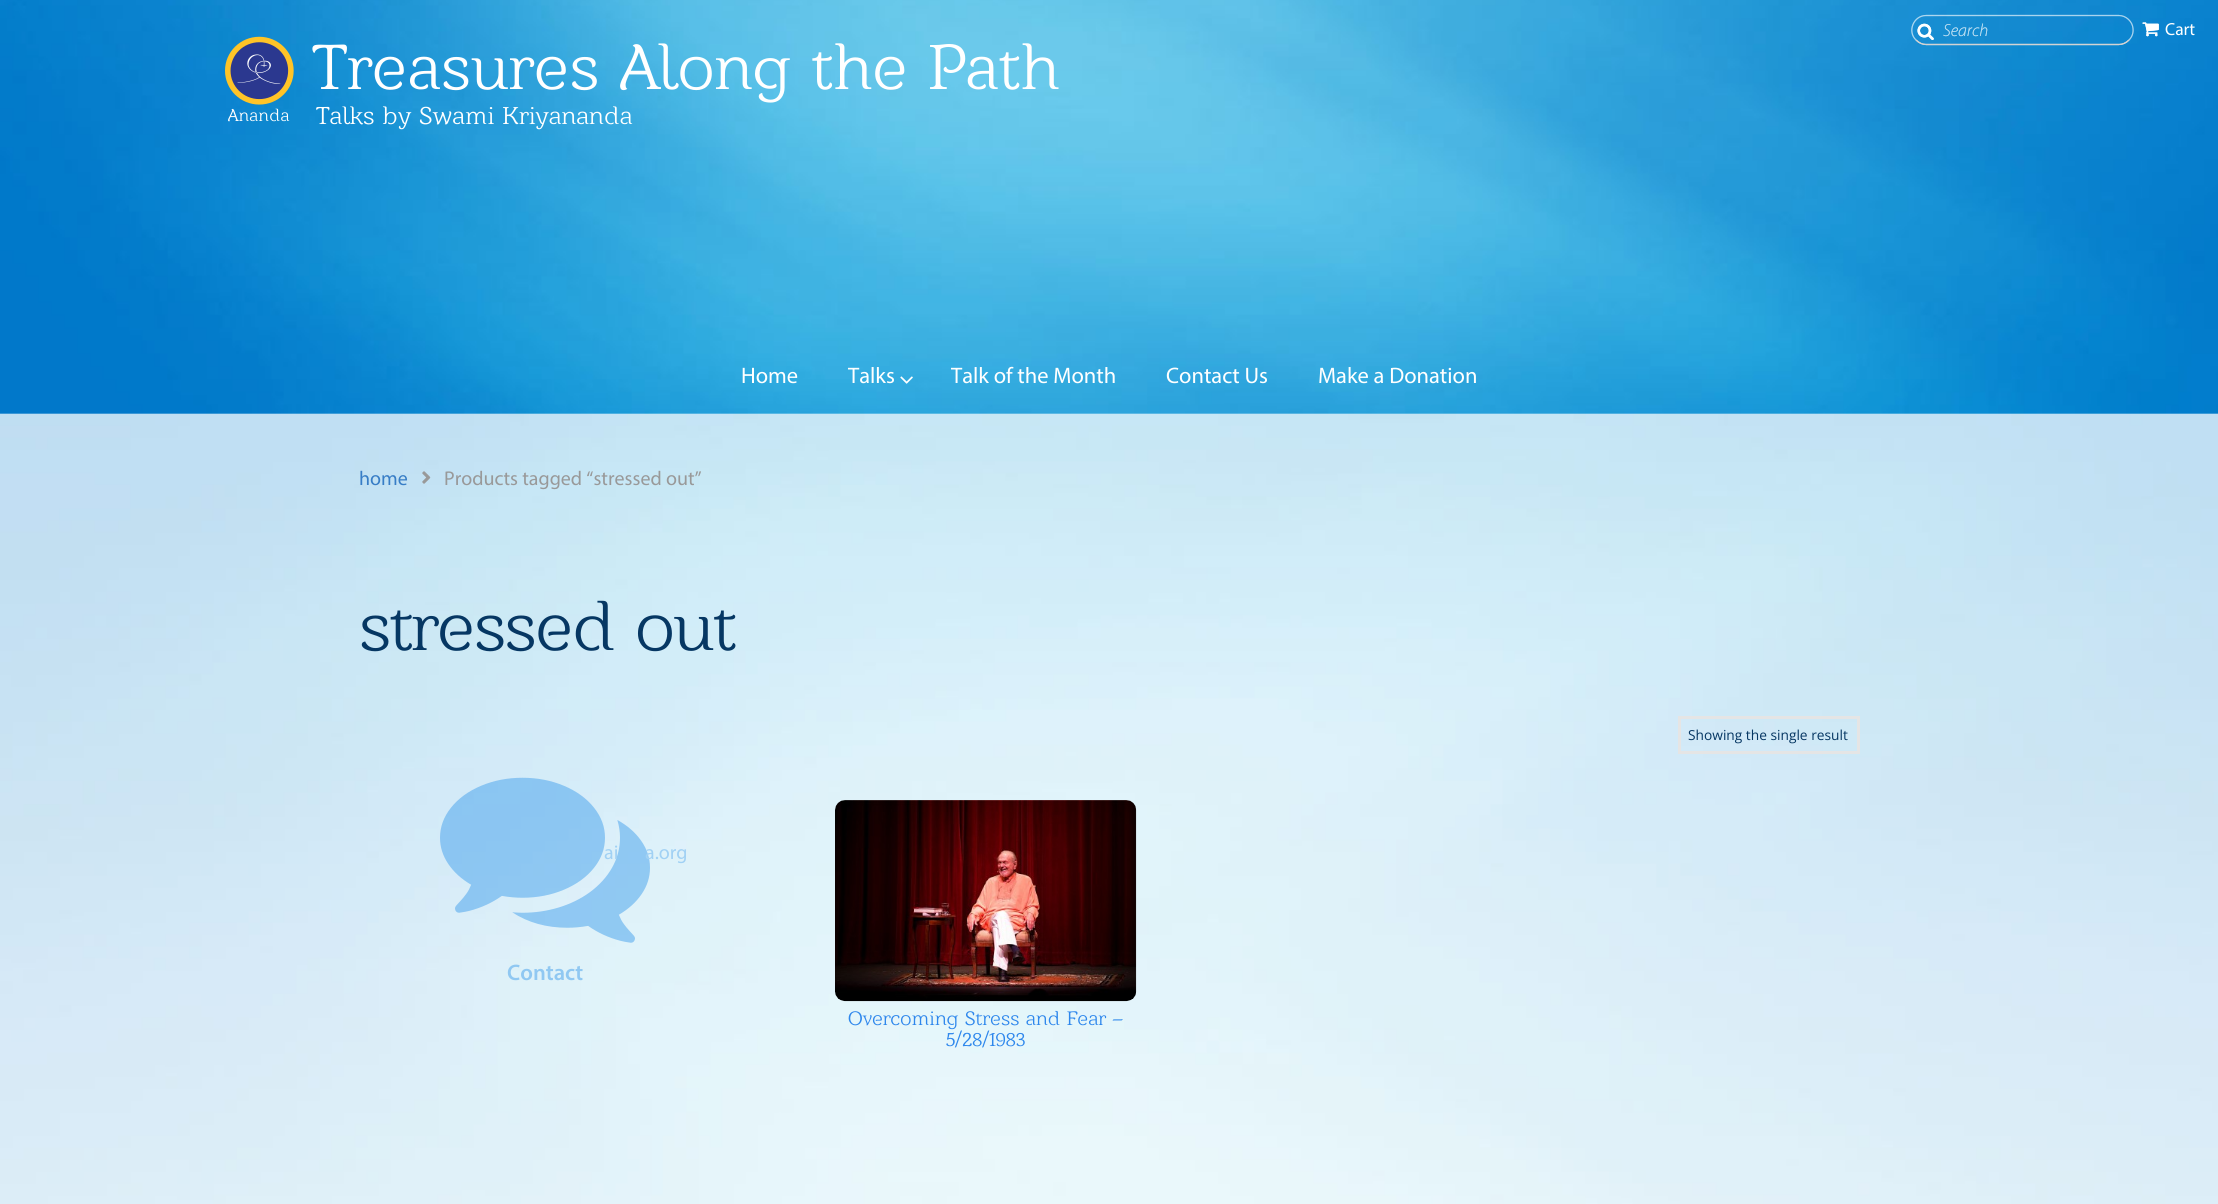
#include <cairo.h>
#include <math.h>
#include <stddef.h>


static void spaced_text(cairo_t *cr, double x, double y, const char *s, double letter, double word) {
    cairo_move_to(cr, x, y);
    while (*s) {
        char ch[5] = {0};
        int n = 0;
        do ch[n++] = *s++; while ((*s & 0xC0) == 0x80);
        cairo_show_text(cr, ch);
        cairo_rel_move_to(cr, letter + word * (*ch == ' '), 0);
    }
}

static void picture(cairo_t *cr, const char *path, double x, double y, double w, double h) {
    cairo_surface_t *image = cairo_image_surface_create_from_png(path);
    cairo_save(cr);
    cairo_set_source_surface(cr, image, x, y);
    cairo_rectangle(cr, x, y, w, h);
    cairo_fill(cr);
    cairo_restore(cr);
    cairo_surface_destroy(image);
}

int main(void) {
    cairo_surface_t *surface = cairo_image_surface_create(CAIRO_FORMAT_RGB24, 2218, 1204);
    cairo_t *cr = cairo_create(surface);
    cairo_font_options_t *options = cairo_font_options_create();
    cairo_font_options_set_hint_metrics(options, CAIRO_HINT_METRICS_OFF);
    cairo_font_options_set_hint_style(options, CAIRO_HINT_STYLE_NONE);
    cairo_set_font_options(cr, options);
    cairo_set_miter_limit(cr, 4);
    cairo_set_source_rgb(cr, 1, 1, 1);
    cairo_paint(cr);
    picture(cr, "img8.png", 0, 413, 2218, 791);
    picture(cr, "img1.png", 0, 0, 2218, 414);
    cairo_new_path(cr);
    cairo_move_to(cr, 2129, 40);
    cairo_curve_to(cr, 2126, 43, 2122.5, 44.5, 2119, 44.5);
    cairo_line_to(cr, 1926, 44.5);
    cairo_curve_to(cr, 1922.5, 44.5, 1919, 43, 1916, 40);
    cairo_set_source_rgb(cr, 0.827, 0.827, 0.827);
    cairo_set_line_width(cr, 1.2);
    cairo_stroke(cr);
    cairo_new_path(cr);
    cairo_move_to(cr, 1916, 40);
    cairo_curve_to(cr, 1907, 31.5, 1913.5, 15.5, 1926, 15.5);
    cairo_line_to(cr, 2119, 15.5);
    cairo_curve_to(cr, 2126, 15.5, 2132.5, 21.5, 2133, 28.5);
    cairo_curve_to(cr, 2133.5, 33, 2132, 37, 2129, 40);
    cairo_set_source_rgba(cr, 1, 1, 1, 0.4);
    cairo_stroke(cr);
    picture(cr, "img2.png", 1917, 23, 17, 17);
    cairo_select_font_face(cr, "Myriad Light", CAIRO_FONT_SLANT_ITALIC, CAIRO_FONT_WEIGHT_NORMAL);
    cairo_set_font_size(cr, 17.5);
    cairo_set_source_rgb(cr, 0.635, 0.82, 0.925);
    cairo_move_to(cr, 1943, 36);
    cairo_show_text(cr, "Search");
    picture(cr, "img3.png", 2142, 22, 17, 15);
    cairo_select_font_face(cr, "Myriad", CAIRO_FONT_SLANT_NORMAL, CAIRO_FONT_WEIGHT_NORMAL);
    cairo_set_source_rgb(cr, 1, 1, 1);
    cairo_move_to(cr, 2165, 35);
    cairo_show_text(cr, "Cart");
    cairo_new_path(cr);
    cairo_move_to(cr, 2129, 40);
    cairo_curve_to(cr, 2126, 43, 2122.5, 44.5, 2119, 44.5);
    cairo_line_to(cr, 1926, 44.5);
    cairo_curve_to(cr, 1922.5, 44.5, 1919, 43, 1916, 40);
    cairo_set_source_rgb(cr, 0.827, 0.827, 0.827);
    cairo_stroke(cr);
    cairo_new_path(cr);
    cairo_move_to(cr, 1916, 40);
    cairo_curve_to(cr, 1907, 31.5, 1913.5, 15.5, 1926, 15.5);
    cairo_line_to(cr, 2119, 15.5);
    cairo_curve_to(cr, 2126, 15.5, 2132.5, 21.5, 2133, 28.5);
    cairo_curve_to(cr, 2133.5, 33, 2132, 37, 2129, 40);
    cairo_set_source_rgba(cr, 1, 1, 1, 0.4);
    cairo_stroke(cr);
    picture(cr, "img4.png", 1917, 23, 17, 17);
    cairo_select_font_face(cr, "Myriad Light", CAIRO_FONT_SLANT_ITALIC, CAIRO_FONT_WEIGHT_NORMAL);
    cairo_set_source_rgb(cr, 0.725, 0.867, 0.945);
    cairo_move_to(cr, 1943, 36);
    cairo_show_text(cr, "Search");
    picture(cr, "img5.png", 2142, 22, 17, 15);
    picture(cr, "img6.png", 225, 36, 69, 69);
    cairo_select_font_face(cr, "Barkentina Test", CAIRO_FONT_SLANT_NORMAL, CAIRO_FONT_WEIGHT_NORMAL);
    cairo_set_source_rgb(cr, 1, 1, 1);
    spaced_text(cr, 228, 121, "Ananda", 0.25, 0);
    cairo_set_font_size(cr, 65);
    cairo_move_to(cr, 312, 89);
    cairo_show_text(cr, "Treasures Along the Path");
    cairo_set_font_size(cr, 25);
    cairo_move_to(cr, 316, 124);
    cairo_show_text(cr, "Talks by Swami Kriyananda");
    cairo_select_font_face(cr, "Myriad", CAIRO_FONT_SLANT_NORMAL, CAIRO_FONT_WEIGHT_NORMAL);
    cairo_set_font_size(cr, 22.5);
    cairo_move_to(cr, 741, 383);
    cairo_show_text(cr, "Home");
    cairo_move_to(cr, 848, 383);
    cairo_show_text(cr, "Talks");
    picture(cr, "img7.png", 900, 376, 13, 8);
    cairo_move_to(cr, 951, 383);
    cairo_show_text(cr, "Talk of the Month");
    cairo_move_to(cr, 1166, 383);
    cairo_show_text(cr, "Contact Us");
    cairo_move_to(cr, 1318, 383);
    cairo_show_text(cr, "Make a Donation");
    cairo_set_font_size(cr, 20);
    cairo_set_source_rgb(cr, 0.216, 0.49, 0.776);
    cairo_move_to(cr, 359, 485);
    cairo_show_text(cr, "home");
    picture(cr, "img9.png", 422, 471, 9, 13);
    cairo_set_source_rgb(cr, 0.6, 0.6, 0.6);
    cairo_move_to(cr, 444, 485);
    cairo_show_text(cr, "Products tagged “stressed out”");
    cairo_select_font_face(cr, "Barkentina Test", CAIRO_FONT_SLANT_NORMAL, CAIRO_FONT_WEIGHT_NORMAL);
    cairo_set_font_size(cr, 70);
    cairo_set_source_rgb(cr, 0.027, 0.216, 0.388);
    spaced_text(cr, 359, 650, "stressed out", -1.5, 0);
    picture(cr, "img10.png", 440, 777, 210, 166);
    cairo_select_font_face(cr, "Myriad", CAIRO_FONT_SLANT_NORMAL, CAIRO_FONT_WEIGHT_NORMAL);
    cairo_set_font_size(cr, 20);
    cairo_set_source_rgb(cr, 0.631, 0.82, 0.957);
    cairo_move_to(cr, 604, 859);
    cairo_show_text(cr, "ai");
    cairo_move_to(cr, 645, 859);
    cairo_show_text(cr, "a.org");
    cairo_select_font_face(cr, "Myriad SemiBold", CAIRO_FONT_SLANT_NORMAL, CAIRO_FONT_WEIGHT_NORMAL);
    cairo_set_font_size(cr, 22.5);
    cairo_set_source_rgb(cr, 0.565, 0.784, 0.949);
    cairo_move_to(cr, 507, 980);
    cairo_show_text(cr, "Contact");
    cairo_rectangle(cr, 1679.5, 717.5, 179, 35);
    cairo_set_source_rgb(cr, 0.898, 0.898, 0.898);
    cairo_set_line_width(cr, 3);
    cairo_stroke(cr);
    cairo_select_font_face(cr, "Open Sans", CAIRO_FONT_SLANT_NORMAL, CAIRO_FONT_WEIGHT_NORMAL);
    cairo_set_font_size(cr, 13.75);
    cairo_set_source_rgb(cr, 0.027, 0.216, 0.388);
    cairo_move_to(cr, 1688, 740);
    cairo_show_text(cr, "Showing the single result");
    picture(cr, "img11.png", 835, 800, 302, 202);
    cairo_select_font_face(cr, "Barkentina Test", CAIRO_FONT_SLANT_NORMAL, CAIRO_FONT_WEIGHT_NORMAL);
    cairo_set_font_size(cr, 20);
    cairo_set_source_rgb(cr, 0.18, 0.529, 0.925);
    cairo_move_to(cr, 848, 1025);
    cairo_show_text(cr, "Overcoming Stress and Fear –");
    cairo_move_to(cr, 946, 1046);
    cairo_show_text(cr, "5/28/1983");
    cairo_surface_write_to_png(surface, "page.png");
    cairo_font_options_destroy(options);
    cairo_destroy(cr);
    cairo_surface_destroy(surface);
    return 0;
}
